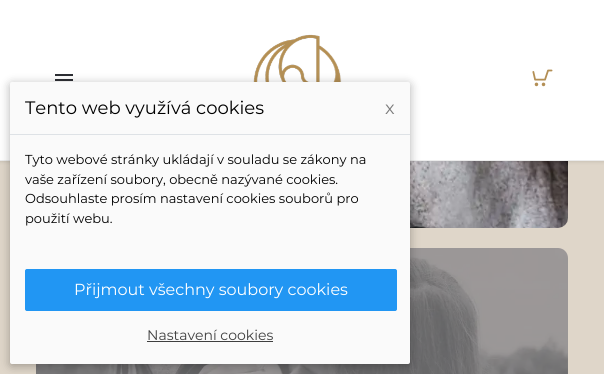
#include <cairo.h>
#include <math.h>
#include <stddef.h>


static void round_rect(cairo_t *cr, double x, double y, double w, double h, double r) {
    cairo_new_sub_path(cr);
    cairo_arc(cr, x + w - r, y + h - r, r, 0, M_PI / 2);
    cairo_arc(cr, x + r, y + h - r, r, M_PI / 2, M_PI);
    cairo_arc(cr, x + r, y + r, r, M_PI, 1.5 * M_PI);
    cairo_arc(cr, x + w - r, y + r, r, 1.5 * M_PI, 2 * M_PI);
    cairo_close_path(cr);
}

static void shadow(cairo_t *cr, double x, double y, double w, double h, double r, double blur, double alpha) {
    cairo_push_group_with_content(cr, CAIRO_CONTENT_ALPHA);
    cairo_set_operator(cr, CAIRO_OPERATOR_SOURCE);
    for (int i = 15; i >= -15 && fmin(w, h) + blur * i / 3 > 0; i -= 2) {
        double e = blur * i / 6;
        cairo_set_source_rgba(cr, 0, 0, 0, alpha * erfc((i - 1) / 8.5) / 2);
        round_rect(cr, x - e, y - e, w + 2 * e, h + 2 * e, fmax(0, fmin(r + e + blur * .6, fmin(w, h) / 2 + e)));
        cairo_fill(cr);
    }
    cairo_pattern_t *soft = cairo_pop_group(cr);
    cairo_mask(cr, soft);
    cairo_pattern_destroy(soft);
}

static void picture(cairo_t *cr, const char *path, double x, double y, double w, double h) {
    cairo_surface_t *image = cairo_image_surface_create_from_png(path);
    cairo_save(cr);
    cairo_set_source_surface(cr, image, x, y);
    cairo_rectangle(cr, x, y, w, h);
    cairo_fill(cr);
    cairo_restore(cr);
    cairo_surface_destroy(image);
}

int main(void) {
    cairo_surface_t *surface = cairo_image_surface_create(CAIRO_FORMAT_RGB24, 604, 374);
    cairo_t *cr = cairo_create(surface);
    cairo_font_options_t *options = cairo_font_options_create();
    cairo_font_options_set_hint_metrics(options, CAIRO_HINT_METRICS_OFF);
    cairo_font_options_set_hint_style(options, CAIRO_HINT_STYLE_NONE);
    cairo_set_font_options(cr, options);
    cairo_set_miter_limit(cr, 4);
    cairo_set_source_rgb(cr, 0.875, 0.839, 0.788);
    cairo_paint(cr);
    picture(cr, "img4.png", 410, 161, 158, 67);
    cairo_set_source_rgb(cr, 0, 0, 0);
    shadow(cr, -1, -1, 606, 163, 0, 1.5, 0.1);
    cairo_set_source_rgb(cr, 1, 1, 1);
    cairo_rectangle(cr, 0, 0, 604, 160);
    cairo_fill(cr);
    picture(cr, "img1.png", 55, 74, 18, 7);
    picture(cr, "img2.png", 253, 34, 89, 48);
    picture(cr, "img3.png", 532, 69, 21, 18);
    cairo_set_source_rgb(cr, 0.922, 0.922, 0.922);
    cairo_rectangle(cr, 0, 160, 604, 1);
    cairo_fill(cr);
    picture(cr, "img5.png", 36, 248, 532, 126);
    cairo_set_source_rgba(cr, 0.478, 0.478, 0.478, 0.72);
    round_rect(cr, 36, 248, 532, 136, 10);
    cairo_fill(cr);
    cairo_set_source_rgb(cr, 0, 0, 0);
    shadow(cr, 10, 84, 400, 282, 2, 5, 0.3);
    cairo_set_source_rgb(cr, 0.98, 0.98, 0.98);
    round_rect(cr, 10, 82, 400, 282, 2);
    cairo_fill(cr);
    cairo_set_source_rgb(cr, 0.871, 0.886, 0.902);
    cairo_rectangle(cr, 10, 134, 400, 1);
    cairo_fill(cr);
    cairo_select_font_face(cr, "Montserrat", CAIRO_FONT_SLANT_NORMAL, CAIRO_FONT_WEIGHT_NORMAL);
    cairo_set_font_size(cr, 18);
    cairo_set_source_rgb(cr, 0, 0, 0);
    cairo_move_to(cr, 25, 114);
    cairo_show_text(cr, "Tento web využívá cookies");
    cairo_set_source_rgb(cr, 0.478, 0.478, 0.478);
    cairo_move_to(cr, 385, 114);
    cairo_show_text(cr, "x");
    cairo_set_font_size(cr, 13);
    cairo_set_source_rgb(cr, 0, 0, 0);
    cairo_move_to(cr, 25, 164);
    cairo_show_text(cr, "Tyto webové stránky ukládají v souladu se zákony na");
    cairo_move_to(cr, 25, 184);
    cairo_show_text(cr, "vaše zařízení soubory, obecně nazývané cookies.");
    cairo_move_to(cr, 25, 203);
    cairo_show_text(cr, "Odsouhlaste prosím nastavení cookies souborů pro");
    cairo_move_to(cr, 25, 223);
    cairo_show_text(cr, "použití webu.");
    cairo_set_source_rgb(cr, 0.129, 0.588, 0.953);
    round_rect(cr, 25.5, 269.5, 371, 41, 1.5);
    cairo_fill_preserve(cr);
    cairo_set_line_width(cr, 1);
    cairo_stroke(cr);
    cairo_set_font_size(cr, 16);
    cairo_set_source_rgb(cr, 1, 1, 1);
    cairo_move_to(cr, 74, 295);
    cairo_show_text(cr, "Přijmout všechny soubory cookies");
    cairo_set_font_size(cr, 14);
    cairo_set_source_rgb(cr, 0.247, 0.247, 0.247);
    cairo_move_to(cr, 147, 340);
    cairo_show_text(cr, "Nastavení cookies");
    cairo_rectangle(cr, 147, 341, 126, 1);
    cairo_fill(cr);
    cairo_surface_write_to_png(surface, "page.png");
    cairo_font_options_destroy(options);
    cairo_destroy(cr);
    cairo_surface_destroy(surface);
    return 0;
}
